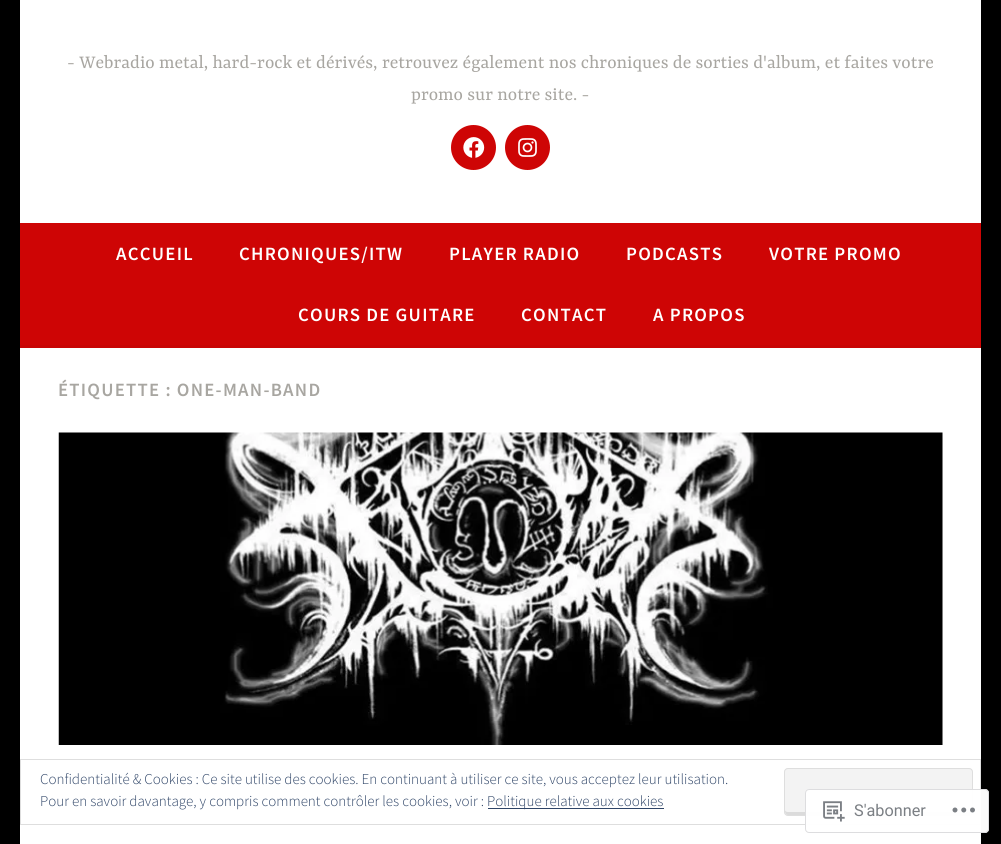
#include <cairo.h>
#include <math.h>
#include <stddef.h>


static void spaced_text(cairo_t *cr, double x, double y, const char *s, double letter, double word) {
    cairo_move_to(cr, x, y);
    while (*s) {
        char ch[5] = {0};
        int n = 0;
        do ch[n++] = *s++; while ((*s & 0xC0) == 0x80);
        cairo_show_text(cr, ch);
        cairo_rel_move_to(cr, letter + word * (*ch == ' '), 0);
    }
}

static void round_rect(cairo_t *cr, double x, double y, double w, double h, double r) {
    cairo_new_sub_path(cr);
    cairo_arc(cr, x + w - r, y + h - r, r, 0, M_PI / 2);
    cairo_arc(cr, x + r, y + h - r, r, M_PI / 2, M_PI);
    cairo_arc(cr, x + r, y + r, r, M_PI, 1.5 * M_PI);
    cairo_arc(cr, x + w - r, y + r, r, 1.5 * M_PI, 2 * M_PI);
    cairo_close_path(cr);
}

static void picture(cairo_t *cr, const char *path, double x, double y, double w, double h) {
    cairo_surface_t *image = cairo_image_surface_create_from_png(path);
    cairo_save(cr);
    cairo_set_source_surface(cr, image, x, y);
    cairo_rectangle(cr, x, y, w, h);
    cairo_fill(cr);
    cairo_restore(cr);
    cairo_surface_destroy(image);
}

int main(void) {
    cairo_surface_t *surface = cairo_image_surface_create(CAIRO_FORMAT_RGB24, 1001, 844);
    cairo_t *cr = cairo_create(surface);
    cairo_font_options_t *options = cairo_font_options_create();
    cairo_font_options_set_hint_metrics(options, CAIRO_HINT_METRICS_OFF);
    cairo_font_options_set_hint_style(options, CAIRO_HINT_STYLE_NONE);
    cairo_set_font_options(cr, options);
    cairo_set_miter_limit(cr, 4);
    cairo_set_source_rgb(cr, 0, 0, 0);
    cairo_paint(cr);
    cairo_set_source_rgb(cr, 1, 1, 1);
    cairo_rectangle(cr, 20, 0, 961, 223);
    cairo_fill(cr);
    cairo_select_font_face(cr, "Yrsa", CAIRO_FONT_SLANT_NORMAL, CAIRO_FONT_WEIGHT_NORMAL);
    cairo_set_font_size(cr, 20);
    cairo_set_source_rgb(cr, 0.659, 0.651, 0.631);
    cairo_move_to(cr, 67, 68);
    cairo_show_text(cr, "- Webradio metal, hard-rock et dérivés, retrouvez également nos chroniques de sorties d'album, et faites votre");
    cairo_move_to(cr, 411, 100);
    cairo_show_text(cr, "promo sur notre site. -");
    cairo_set_source_rgb(cr, 0.808, 0.02, 0.02);
    cairo_new_path(cr);
    cairo_arc(cr, 473.5, 147.5, 22.5, 0, 2 * M_PI);
    cairo_fill(cr);
    picture(cr, "img1.png", 463, 137, 22, 21);
    cairo_arc(cr, 527.5, 147.5, 22.5, 0, 2 * M_PI);
    cairo_fill(cr);
    picture(cr, "img2.png", 518, 138, 19, 19);
    cairo_rectangle(cr, 20, 223, 961, 122);
    cairo_fill(cr);
    cairo_set_source_rgb(cr, 0.784, 0.02, 0.02);
    cairo_rectangle(cr, 20, 345, 961, 3);
    cairo_fill(cr);
    cairo_select_font_face(cr, "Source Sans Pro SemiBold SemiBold", CAIRO_FONT_SLANT_NORMAL, CAIRO_FONT_WEIGHT_NORMAL);
    cairo_set_font_size(cr, 18.75);
    cairo_set_source_rgb(cr, 1, 1, 1);
    spaced_text(cr, 116, 260, "ACCUEIL", 1.25, 0);
    spaced_text(cr, 239, 260, "CHRONIQUES/ITW", 1.25, 0);
    spaced_text(cr, 449, 260, "PLAYER RADIO", 1.25, 0);
    spaced_text(cr, 626, 260, "PODCASTS", 1.25, 0);
    spaced_text(cr, 769, 260, "VOTRE PROMO", 1.25, 0);
    spaced_text(cr, 298, 321, "COURS DE GUITARE", 1.25, 0);
    spaced_text(cr, 521, 321, "CONTACT", 1.25, 0);
    spaced_text(cr, 653, 321, "A PROPOS", 1.25, 0);
    cairo_rectangle(cr, 20, 348, 961, 496);
    cairo_fill(cr);
    cairo_set_source_rgb(cr, 0.659, 0.651, 0.631);
    spaced_text(cr, 58, 396, "ÉTIQUETTE : ONE-MAN-BAND", 1.25, 0);
    cairo_set_source_rgb(cr, 0.973, 0.976, 0.973);
    cairo_rectangle(cr, 942, 433, 1, 312);
    cairo_fill(cr);
    picture(cr, "img3.png", 58, 432, 885, 313);
    cairo_rectangle(cr, 20.5, 759.5, 960, 65);
    cairo_set_source_rgb(cr, 0.871, 0.871, 0.871);
    cairo_set_line_width(cr, 1);
    cairo_stroke(cr);
    cairo_select_font_face(cr, "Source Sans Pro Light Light", CAIRO_FONT_SLANT_NORMAL, CAIRO_FONT_WEIGHT_NORMAL);
    cairo_set_font_size(cr, 15);
    cairo_set_source_rgb(cr, 0.18, 0.267, 0.404);
    cairo_move_to(cr, 40, 784);
    cairo_show_text(cr, "Confidentialité & Cookies : Ce site utilise des cookies. En continuant à utiliser ce site, vous acceptez leur utilisation.");
    cairo_set_source_rgb(cr, 0.953, 0.953, 0.953);
    round_rect(cr, 784, 768, 189, 48, 4);
    cairo_fill(cr);
    cairo_set_source_rgb(cr, 0.859, 0.859, 0.859);
    cairo_new_path(cr);
    cairo_move_to(cr, 785, 810);
    cairo_curve_to(cr, 785, 812, 785, 815, 788, 815);
    cairo_line_to(cr, 969, 815);
    cairo_curve_to(cr, 971, 814, 971, 812, 971, 810);
    cairo_curve_to(cr, 971, 811, 970, 812, 969, 812);
    cairo_line_to(cr, 788, 812);
    cairo_curve_to(cr, 786, 812, 785, 811, 785, 810);
    cairo_close_path(cr);
    cairo_fill(cr);
    round_rect(cr, 784.5, 768.5, 188, 47, 3.5);
    cairo_set_source_rgb(cr, 0.871, 0.871, 0.871);
    cairo_stroke(cr);
    cairo_set_source_rgb(cr, 0.18, 0.267, 0.404);
    cairo_move_to(cr, 40, 806);
    cairo_show_text(cr, "Pour en savoir davantage, y compris comment contrôler les cookies, voir :");
    cairo_rectangle(cr, 488, 808, 176, 1);
    cairo_fill(cr);
    cairo_move_to(cr, 487, 806);
    cairo_show_text(cr, "Politique relative aux cookies");
    cairo_set_source_rgba(cr, 1, 1, 1, 0.98);
    round_rect(cr, 805, 789, 184, 44, 4);
    cairo_fill(cr);
    round_rect(cr, 805.5, 789.5, 183, 43, 3.5);
    cairo_set_source_rgba(cr, 0.863, 0.863, 0.871, 0.98);
    cairo_stroke(cr);
    picture(cr, "img4.png", 823, 801, 22, 21);
    cairo_select_font_face(cr, "Roboto", CAIRO_FONT_SLANT_NORMAL, CAIRO_FONT_WEIGHT_NORMAL);
    cairo_set_font_size(cr, 16.25);
    cairo_set_source_rgb(cr, 0.482, 0.498, 0.518);
    cairo_move_to(cr, 854, 816);
    cairo_show_text(cr, "S'abonner");
    picture(cr, "img5.png", 952, 807, 23, 6);
    cairo_surface_write_to_png(surface, "page.png");
    cairo_font_options_destroy(options);
    cairo_destroy(cr);
    cairo_surface_destroy(surface);
    return 0;
}
